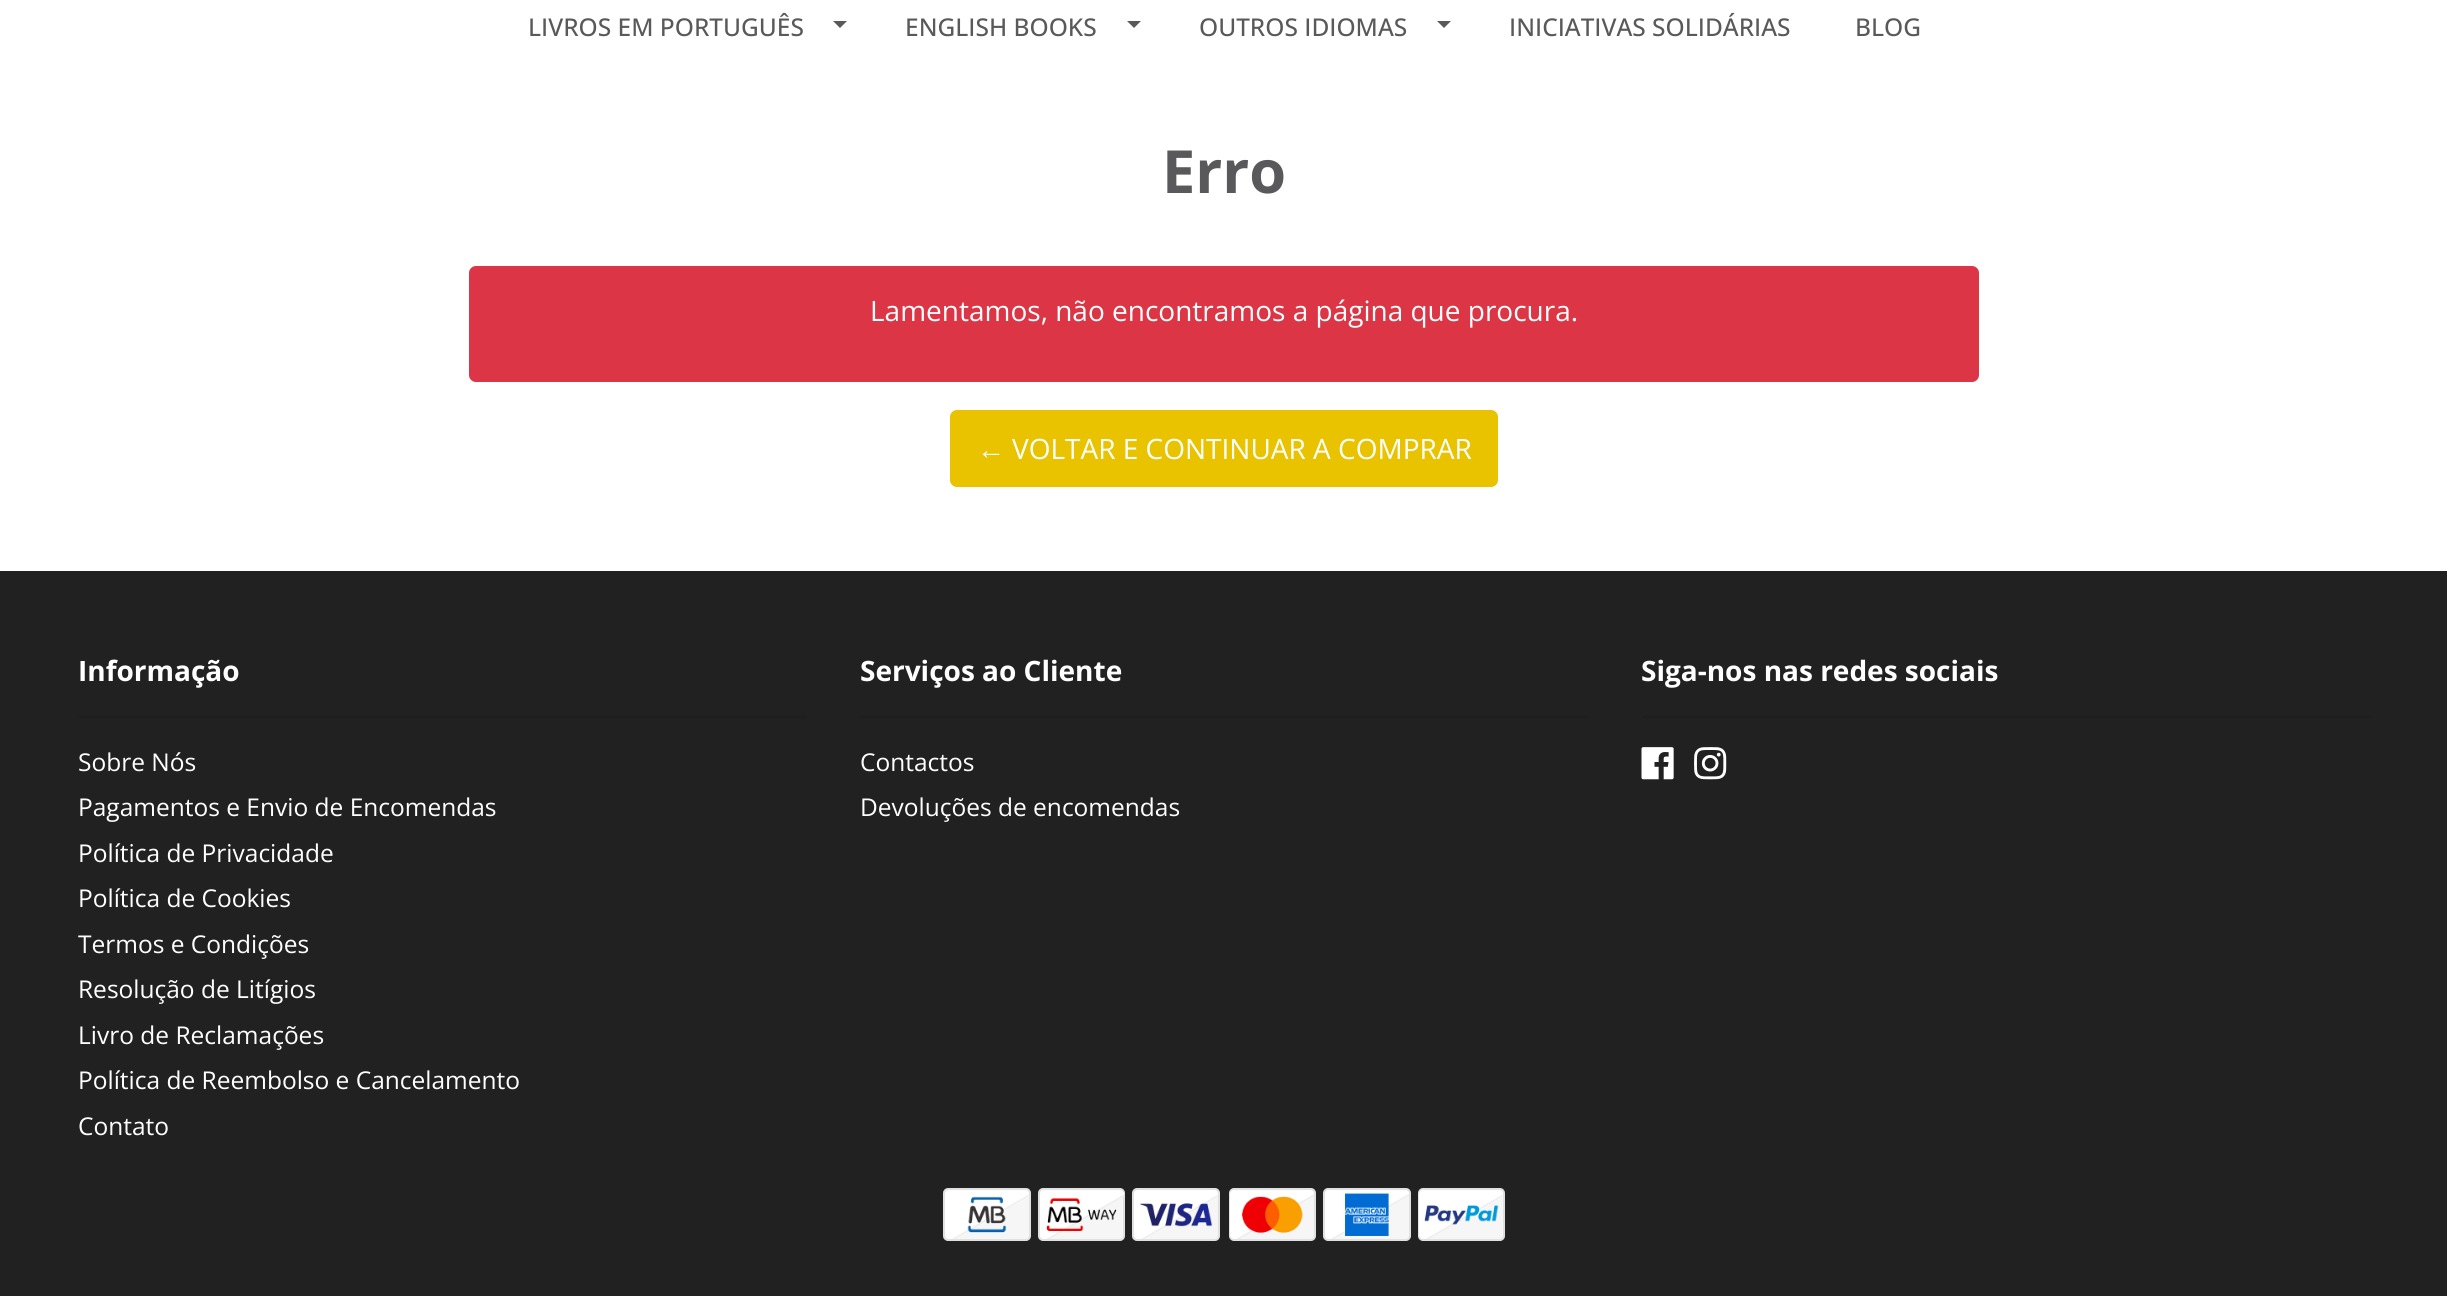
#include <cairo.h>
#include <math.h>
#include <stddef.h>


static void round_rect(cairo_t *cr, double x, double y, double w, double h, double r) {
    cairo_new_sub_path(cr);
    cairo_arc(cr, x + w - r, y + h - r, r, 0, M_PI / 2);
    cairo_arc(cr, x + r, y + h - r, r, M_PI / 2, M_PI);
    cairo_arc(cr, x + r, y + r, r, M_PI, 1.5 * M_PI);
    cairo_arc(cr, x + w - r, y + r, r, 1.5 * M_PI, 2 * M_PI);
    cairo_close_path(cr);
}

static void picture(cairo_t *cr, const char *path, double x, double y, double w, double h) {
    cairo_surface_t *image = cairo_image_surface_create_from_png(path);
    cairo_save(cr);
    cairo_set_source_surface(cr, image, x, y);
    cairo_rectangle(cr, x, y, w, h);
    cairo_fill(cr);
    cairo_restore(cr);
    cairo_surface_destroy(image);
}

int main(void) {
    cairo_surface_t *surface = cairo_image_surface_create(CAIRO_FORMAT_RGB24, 2447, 1296);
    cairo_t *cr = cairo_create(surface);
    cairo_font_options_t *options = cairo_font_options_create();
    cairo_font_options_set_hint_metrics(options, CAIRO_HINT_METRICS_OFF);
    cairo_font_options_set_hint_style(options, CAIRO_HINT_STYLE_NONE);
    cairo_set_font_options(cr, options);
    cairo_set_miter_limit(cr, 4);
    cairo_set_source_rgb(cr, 1, 1, 1);
    cairo_paint(cr);
    cairo_select_font_face(cr, "Open Sans Medium", CAIRO_FONT_SLANT_NORMAL, CAIRO_FONT_WEIGHT_NORMAL);
    cairo_set_font_size(cr, 24.5);
    cairo_set_source_rgb(cr, 0.349, 0.349, 0.357);
    cairo_move_to(cr, 528, 36);
    cairo_show_text(cr, "LIVROS EM PORTUGUÊS");
    cairo_new_path(cr);
    cairo_move_to(cr, 833, 21);
    cairo_line_to(cr, 847, 21);
    cairo_line_to(cr, 840, 28);
    cairo_close_path(cr);
    cairo_fill(cr);
    cairo_move_to(cr, 905, 36);
    cairo_show_text(cr, "ENGLISH BOOKS");
    cairo_new_path(cr);
    cairo_move_to(cr, 1127, 21);
    cairo_line_to(cr, 1141, 21);
    cairo_line_to(cr, 1134, 28);
    cairo_close_path(cr);
    cairo_fill(cr);
    cairo_move_to(cr, 1199, 36);
    cairo_show_text(cr, "OUTROS IDIOMAS");
    cairo_new_path(cr);
    cairo_move_to(cr, 1437, 21);
    cairo_line_to(cr, 1451, 21);
    cairo_line_to(cr, 1444, 28);
    cairo_close_path(cr);
    cairo_fill(cr);
    cairo_move_to(cr, 1509, 36);
    cairo_show_text(cr, "INICIATIVAS SOLIDÁRIAS");
    cairo_move_to(cr, 1855, 36);
    cairo_show_text(cr, "BLOG");
    cairo_select_font_face(cr, "Open Sans", CAIRO_FONT_SLANT_NORMAL, CAIRO_FONT_WEIGHT_BOLD);
    cairo_set_font_size(cr, 59.5);
    cairo_move_to(cr, 1162, 193);
    cairo_show_text(cr, "Erro");
    cairo_set_source_rgb(cr, 0.863, 0.208, 0.271);
    round_rect(cr, 469, 266, 1510, 116, 7);
    cairo_fill(cr);
    cairo_select_font_face(cr, "Open Sans", CAIRO_FONT_SLANT_NORMAL, CAIRO_FONT_WEIGHT_NORMAL);
    cairo_set_font_size(cr, 28);
    cairo_set_source_rgb(cr, 1, 1, 1);
    cairo_move_to(cr, 870, 321);
    cairo_show_text(cr, "Lamentamos, não encontramos a página que procura.");
    cairo_set_source_rgb(cr, 0.914, 0.765, 0);
    round_rect(cr, 950, 410, 548, 77, 7);
    cairo_fill(cr);
    cairo_select_font_face(cr, "Liberation Serif", CAIRO_FONT_SLANT_NORMAL, CAIRO_FONT_WEIGHT_NORMAL);
    cairo_set_source_rgb(cr, 1, 1, 1);
    cairo_move_to(cr, 977, 459);
    cairo_show_text(cr, "←");
    cairo_select_font_face(cr, "Open Sans", CAIRO_FONT_SLANT_NORMAL, CAIRO_FONT_WEIGHT_NORMAL);
    cairo_move_to(cr, 1012, 459);
    cairo_show_text(cr, "VOLTAR E CONTINUAR A COMPRAR");
    cairo_set_source_rgb(cr, 0.129, 0.129, 0.129);
    cairo_rectangle(cr, 0, 571, 2447, 725);
    cairo_fill(cr);
    cairo_set_source_rgb(cr, 0.118, 0.118, 0.118);
    cairo_rectangle(cr, 79, 716, 728, 2);
    cairo_fill(cr);
    cairo_select_font_face(cr, "Open Sans", CAIRO_FONT_SLANT_NORMAL, CAIRO_FONT_WEIGHT_BOLD);
    cairo_set_source_rgb(cr, 1, 1, 1);
    cairo_move_to(cr, 78, 681);
    cairo_show_text(cr, "Informação");
    cairo_select_font_face(cr, "Open Sans", CAIRO_FONT_SLANT_NORMAL, CAIRO_FONT_WEIGHT_NORMAL);
    cairo_set_font_size(cr, 24.5);
    cairo_move_to(cr, 78, 771);
    cairo_show_text(cr, "Sobre Nós");
    cairo_move_to(cr, 78, 816);
    cairo_show_text(cr, "Pagamentos e Envio de Encomendas");
    cairo_move_to(cr, 78, 862);
    cairo_show_text(cr, "Política de Privacidade");
    cairo_move_to(cr, 78, 907);
    cairo_show_text(cr, "Política de Cookies");
    cairo_move_to(cr, 78, 953);
    cairo_show_text(cr, "Termos e Condições");
    cairo_move_to(cr, 78, 998);
    cairo_show_text(cr, "Resolução de Litígios");
    cairo_move_to(cr, 78, 1044);
    cairo_show_text(cr, "Livro de Reclamações");
    cairo_move_to(cr, 78, 1089);
    cairo_show_text(cr, "Política de Reembolso e Cancelamento");
    cairo_move_to(cr, 78, 1135);
    cairo_show_text(cr, "Contato");
    cairo_set_source_rgb(cr, 0.118, 0.118, 0.118);
    cairo_rectangle(cr, 859, 716, 730, 2);
    cairo_fill(cr);
    cairo_select_font_face(cr, "Open Sans", CAIRO_FONT_SLANT_NORMAL, CAIRO_FONT_WEIGHT_BOLD);
    cairo_set_font_size(cr, 28);
    cairo_set_source_rgb(cr, 1, 1, 1);
    cairo_move_to(cr, 860, 681);
    cairo_show_text(cr, "Serviços ao Cliente");
    cairo_select_font_face(cr, "Open Sans", CAIRO_FONT_SLANT_NORMAL, CAIRO_FONT_WEIGHT_NORMAL);
    cairo_set_font_size(cr, 24.5);
    cairo_move_to(cr, 860, 771);
    cairo_show_text(cr, "Contactos");
    cairo_move_to(cr, 860, 816);
    cairo_show_text(cr, "Devoluções de encomendas");
    cairo_set_source_rgb(cr, 0.118, 0.118, 0.118);
    cairo_rectangle(cr, 1642, 716, 728, 2);
    cairo_fill(cr);
    cairo_select_font_face(cr, "Open Sans", CAIRO_FONT_SLANT_NORMAL, CAIRO_FONT_WEIGHT_BOLD);
    cairo_set_font_size(cr, 28);
    cairo_set_source_rgb(cr, 1, 1, 1);
    cairo_move_to(cr, 1641, 681);
    cairo_show_text(cr, "Siga-nos nas redes sociais");
    picture(cr, "img1.png", 1641, 747, 33, 33);
    picture(cr, "img2.png", 1694, 747, 33, 33);
    cairo_set_source_rgb(cr, 0.961, 0.961, 0.961);
    round_rect(cr, 944, 1189, 86, 51, 4);
    cairo_fill_preserve(cr);
    cairo_set_source_rgb(cr, 0.882, 0.882, 0.882);
    cairo_stroke(cr);
    cairo_set_source_rgb(cr, 1, 1, 1);
    cairo_new_path(cr);
    cairo_move_to(cr, 949, 1190);
    cairo_line_to(cr, 1025, 1190);
    cairo_curve_to(cr, 1027, 1190, 1029, 1192, 1029, 1194);
    cairo_line_to(cr, 1029, 1197);
    cairo_line_to(cr, 955, 1239);
    cairo_line_to(cr, 949, 1239);
    cairo_curve_to(cr, 947, 1239, 945, 1237, 945, 1235);
    cairo_line_to(cr, 945, 1194);
    cairo_curve_to(cr, 945, 1192, 947, 1190, 949, 1190);
    cairo_close_path(cr);
    cairo_fill(cr);
    cairo_save(cr);
    round_rect(cr, 945, 1190, 84, 49, 4);
    cairo_clip(cr);
    cairo_new_path(cr);
    cairo_move_to(cr, 977, 1025.5);
    cairo_line_to(cr, 1063.5, 1175.5);
    cairo_line_to(cr, 913.5, 1262);
    cairo_line_to(cr, 827, 1112);
    cairo_close_path(cr);
    cairo_set_source_rgb(cr, 0.933, 0.933, 0.933);
    cairo_set_line_width(cr, 1.7);
    cairo_stroke(cr);
    cairo_restore(cr);
    picture(cr, "img3.png", 967, 1196, 40, 37);
    cairo_set_source_rgb(cr, 0.961, 0.961, 0.961);
    round_rect(cr, 1039, 1189, 85, 51, 4);
    cairo_fill_preserve(cr);
    cairo_set_source_rgb(cr, 0.882, 0.882, 0.882);
    cairo_stroke(cr);
    cairo_set_source_rgb(cr, 1, 1, 1);
    cairo_new_path(cr);
    cairo_move_to(cr, 1044, 1190);
    cairo_line_to(cr, 1120, 1190);
    cairo_curve_to(cr, 1122, 1190, 1124, 1192, 1124, 1194);
    cairo_line_to(cr, 1124, 1196);
    cairo_line_to(cr, 1050, 1239);
    cairo_line_to(cr, 1044, 1239);
    cairo_curve_to(cr, 1042, 1239, 1040, 1237, 1040, 1235);
    cairo_line_to(cr, 1040, 1194);
    cairo_curve_to(cr, 1040, 1192, 1042, 1190, 1044, 1190);
    cairo_close_path(cr);
    cairo_fill(cr);
    cairo_save(cr);
    round_rect(cr, 1040, 1190, 84, 49, 4);
    cairo_clip(cr);
    cairo_new_path(cr);
    cairo_move_to(cr, 1071.5, 1025.5);
    cairo_line_to(cr, 1158.5, 1175.5);
    cairo_line_to(cr, 1008, 1262);
    cairo_line_to(cr, 921.5, 1112);
    cairo_close_path(cr);
    cairo_set_source_rgb(cr, 0.933, 0.933, 0.933);
    cairo_set_line_width(cr, 1.7);
    cairo_stroke(cr);
    cairo_restore(cr);
    picture(cr, "img4.png", 1046, 1198, 71, 33);
    cairo_set_source_rgb(cr, 0.961, 0.961, 0.961);
    round_rect(cr, 1133, 1189, 86, 51, 4);
    cairo_fill_preserve(cr);
    cairo_set_source_rgb(cr, 0.882, 0.882, 0.882);
    cairo_stroke(cr);
    cairo_set_source_rgb(cr, 1, 1, 1);
    cairo_new_path(cr);
    cairo_move_to(cr, 1138, 1190);
    cairo_line_to(cr, 1214, 1190);
    cairo_curve_to(cr, 1216, 1190, 1218, 1192, 1218, 1194);
    cairo_line_to(cr, 1218, 1197);
    cairo_line_to(cr, 1145, 1239);
    cairo_line_to(cr, 1138, 1239);
    cairo_curve_to(cr, 1136, 1239, 1134, 1237, 1134, 1235);
    cairo_line_to(cr, 1134, 1194);
    cairo_curve_to(cr, 1134, 1192, 1136, 1190, 1138, 1190);
    cairo_close_path(cr);
    cairo_fill(cr);
    cairo_save(cr);
    round_rect(cr, 1134, 1190, 84, 49, 4);
    cairo_clip(cr);
    cairo_new_path(cr);
    cairo_move_to(cr, 1166.5, 1025.5);
    cairo_line_to(cr, 1253, 1175.5);
    cairo_line_to(cr, 1103, 1262);
    cairo_line_to(cr, 1016.5, 1112);
    cairo_close_path(cr);
    cairo_set_source_rgb(cr, 0.933, 0.933, 0.933);
    cairo_set_line_width(cr, 1.7);
    cairo_stroke(cr);
    cairo_restore(cr);
    picture(cr, "img5.png", 1140, 1203, 73, 24);
    cairo_set_source_rgb(cr, 0.961, 0.961, 0.961);
    round_rect(cr, 1230, 1189, 85, 51, 4);
    cairo_fill_preserve(cr);
    cairo_set_source_rgb(cr, 0.882, 0.882, 0.882);
    cairo_stroke(cr);
    cairo_set_source_rgb(cr, 1, 1, 1);
    cairo_new_path(cr);
    cairo_move_to(cr, 1234, 1190);
    cairo_line_to(cr, 1310, 1190);
    cairo_curve_to(cr, 1312, 1190, 1314, 1192, 1314, 1194);
    cairo_line_to(cr, 1314, 1196);
    cairo_line_to(cr, 1239, 1239);
    cairo_line_to(cr, 1234, 1239);
    cairo_curve_to(cr, 1232, 1239, 1230, 1237, 1230, 1235);
    cairo_line_to(cr, 1230, 1194);
    cairo_curve_to(cr, 1230, 1192, 1232, 1190, 1234, 1190);
    cairo_close_path(cr);
    cairo_fill(cr);
    cairo_save(cr);
    round_rect(cr, 1230, 1190, 84, 49, 4);
    cairo_clip(cr);
    cairo_new_path(cr);
    cairo_move_to(cr, 1261, 1025.5);
    cairo_line_to(cr, 1348, 1175.5);
    cairo_line_to(cr, 1198, 1262);
    cairo_line_to(cr, 1111, 1112);
    cairo_close_path(cr);
    cairo_set_source_rgb(cr, 0.933, 0.933, 0.933);
    cairo_set_line_width(cr, 1.7);
    cairo_stroke(cr);
    cairo_restore(cr);
    picture(cr, "img6.png", 1242, 1196, 61, 37);
    cairo_set_source_rgb(cr, 0.961, 0.961, 0.961);
    round_rect(cr, 1324, 1189, 86, 51, 4);
    cairo_fill_preserve(cr);
    cairo_set_source_rgb(cr, 0.882, 0.882, 0.882);
    cairo_stroke(cr);
    cairo_set_source_rgb(cr, 1, 1, 1);
    cairo_new_path(cr);
    cairo_move_to(cr, 1329, 1190);
    cairo_line_to(cr, 1405, 1190);
    cairo_curve_to(cr, 1407, 1190, 1409, 1192, 1409, 1194);
    cairo_line_to(cr, 1409, 1196);
    cairo_line_to(cr, 1334, 1239);
    cairo_line_to(cr, 1329, 1239);
    cairo_curve_to(cr, 1327, 1239, 1325, 1237, 1325, 1235);
    cairo_line_to(cr, 1325, 1194);
    cairo_curve_to(cr, 1325, 1192, 1327, 1190, 1329, 1190);
    cairo_close_path(cr);
    cairo_fill(cr);
    cairo_save(cr);
    round_rect(cr, 1325, 1190, 84, 49, 4);
    cairo_clip(cr);
    cairo_new_path(cr);
    cairo_move_to(cr, 1356, 1025.5);
    cairo_line_to(cr, 1442.5, 1175.5);
    cairo_line_to(cr, 1292.5, 1262);
    cairo_line_to(cr, 1206, 1112);
    cairo_close_path(cr);
    cairo_set_source_rgb(cr, 0.933, 0.933, 0.933);
    cairo_set_line_width(cr, 1.7);
    cairo_stroke(cr);
    cairo_restore(cr);
    picture(cr, "img7.png", 1345, 1193, 44, 43);
    cairo_set_source_rgb(cr, 0.961, 0.961, 0.961);
    round_rect(cr, 1419, 1189, 85, 51, 4);
    cairo_fill_preserve(cr);
    cairo_set_source_rgb(cr, 0.882, 0.882, 0.882);
    cairo_stroke(cr);
    cairo_set_source_rgb(cr, 1, 1, 1);
    cairo_new_path(cr);
    cairo_move_to(cr, 1423, 1190);
    cairo_line_to(cr, 1499, 1190);
    cairo_curve_to(cr, 1501, 1190, 1503, 1192, 1503, 1194);
    cairo_line_to(cr, 1503, 1197);
    cairo_line_to(cr, 1429, 1239);
    cairo_line_to(cr, 1423, 1239);
    cairo_curve_to(cr, 1421, 1239, 1419, 1237, 1419, 1235);
    cairo_line_to(cr, 1419, 1194);
    cairo_curve_to(cr, 1419, 1192, 1421, 1190, 1423, 1190);
    cairo_close_path(cr);
    cairo_fill(cr);
    cairo_save(cr);
    round_rect(cr, 1419, 1190, 84, 49, 4);
    cairo_clip(cr);
    cairo_new_path(cr);
    cairo_move_to(cr, 1450.5, 1025.5);
    cairo_line_to(cr, 1537.5, 1175.5);
    cairo_line_to(cr, 1387.5, 1262);
    cairo_line_to(cr, 1300.5, 1112);
    cairo_close_path(cr);
    cairo_set_source_rgb(cr, 0.933, 0.933, 0.933);
    cairo_set_line_width(cr, 1.7);
    cairo_stroke(cr);
    cairo_restore(cr);
    picture(cr, "img8.png", 1424, 1205, 75, 20);
    cairo_surface_write_to_png(surface, "page.png");
    cairo_font_options_destroy(options);
    cairo_destroy(cr);
    cairo_surface_destroy(surface);
    return 0;
}
